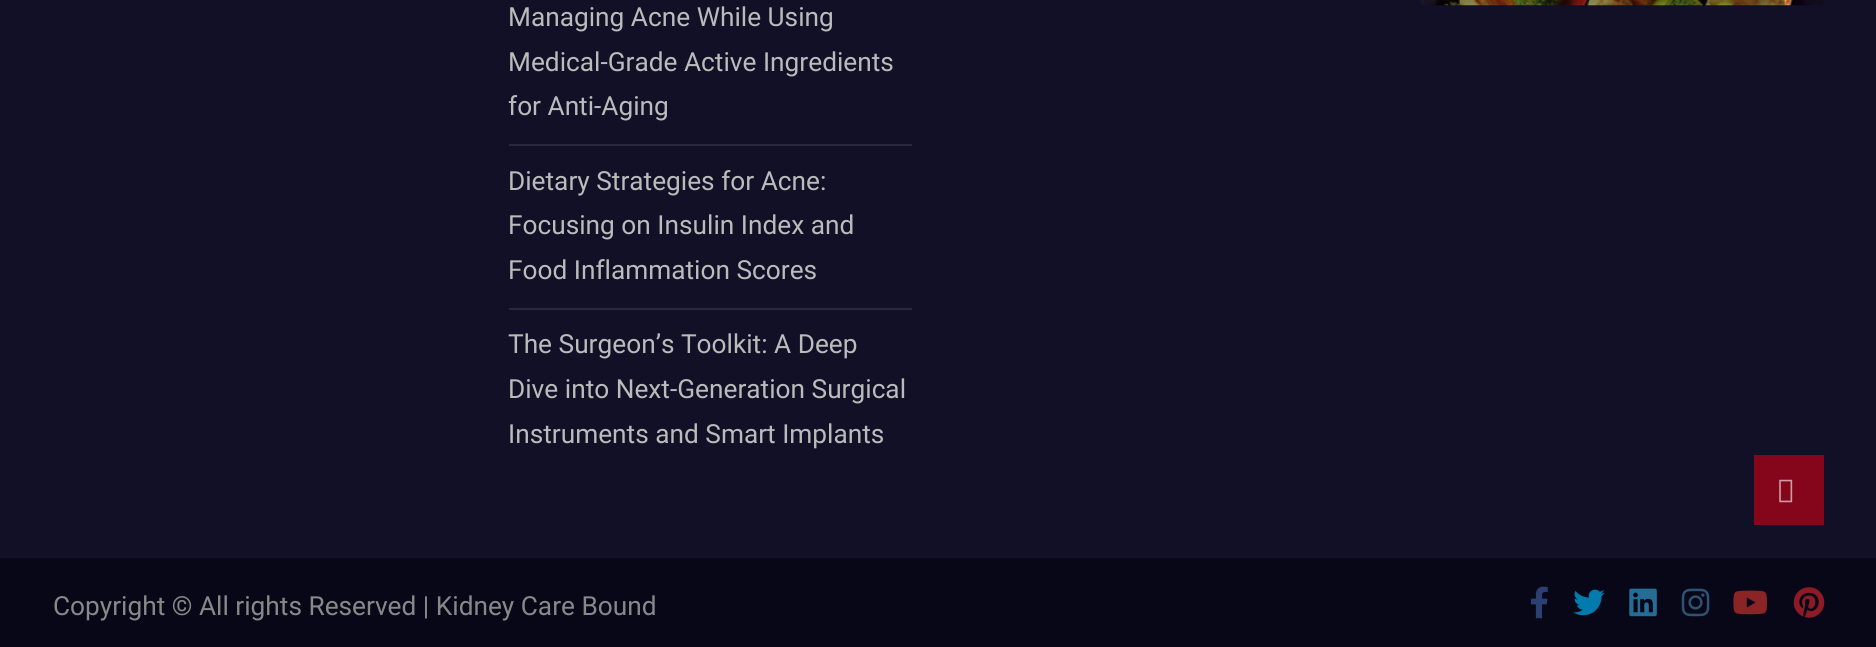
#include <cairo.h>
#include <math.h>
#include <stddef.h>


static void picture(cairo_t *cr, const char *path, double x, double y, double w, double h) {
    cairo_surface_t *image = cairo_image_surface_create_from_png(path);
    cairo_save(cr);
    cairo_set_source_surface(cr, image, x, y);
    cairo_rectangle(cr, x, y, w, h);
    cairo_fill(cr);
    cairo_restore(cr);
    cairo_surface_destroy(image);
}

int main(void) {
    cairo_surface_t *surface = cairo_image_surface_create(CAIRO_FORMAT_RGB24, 1876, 647);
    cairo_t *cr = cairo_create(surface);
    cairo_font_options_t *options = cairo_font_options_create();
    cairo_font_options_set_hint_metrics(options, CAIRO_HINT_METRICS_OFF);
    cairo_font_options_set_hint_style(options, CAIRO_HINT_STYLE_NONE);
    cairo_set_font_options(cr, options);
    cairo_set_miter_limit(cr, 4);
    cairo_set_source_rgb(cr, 0.071, 0.063, 0.149);
    cairo_paint(cr);
    picture(cr, "img1.png", 1421, 0, 403, 6);
    cairo_set_source_rgb(cr, 0.165, 0.157, 0.235);
    cairo_rectangle(cr, 509, 144, 403, 2);
    cairo_fill(cr);
    cairo_select_font_face(cr, "Roboto", CAIRO_FONT_SLANT_NORMAL, CAIRO_FONT_WEIGHT_NORMAL);
    cairo_set_font_size(cr, 26.25);
    cairo_set_source_rgb(cr, 0.733, 0.733, 0.733);
    cairo_move_to(cr, 508, 26);
    cairo_show_text(cr, "Managing Acne While Using");
    cairo_move_to(cr, 508, 71);
    cairo_show_text(cr, "Medical-Grade Active Ingredients");
    cairo_move_to(cr, 508, 115);
    cairo_show_text(cr, "for Anti-Aging");
    cairo_set_source_rgb(cr, 0.165, 0.157, 0.235);
    cairo_rectangle(cr, 509, 308, 403, 2);
    cairo_fill(cr);
    cairo_set_source_rgb(cr, 0.733, 0.733, 0.733);
    cairo_move_to(cr, 508, 190);
    cairo_show_text(cr, "Dietary Strategies for Acne:");
    cairo_move_to(cr, 508, 234);
    cairo_show_text(cr, "Focusing on Insulin Index and");
    cairo_move_to(cr, 508, 279);
    cairo_show_text(cr, "Food Inflammation Scores");
    cairo_move_to(cr, 508, 353);
    cairo_show_text(cr, "The Surgeon’s Toolkit: A Deep");
    cairo_move_to(cr, 508, 398);
    cairo_show_text(cr, "Dive into Next-Generation Surgical");
    cairo_move_to(cr, 508, 443);
    cairo_show_text(cr, "Instruments and Smart Implants");
    cairo_set_source_rgb(cr, 0.035, 0.031, 0.094);
    cairo_rectangle(cr, 0, 558, 1876, 89);
    cairo_fill(cr);
    cairo_set_source_rgb(cr, 0.533, 0.533, 0.533);
    cairo_move_to(cr, 53, 615);
    cairo_show_text(cr, "Copyright © All rights Reserved | Kidney Care Bound");
    picture(cr, "img2.png", 1530, 586, 18, 33);
    picture(cr, "img3.png", 1573, 589, 32, 27);
    picture(cr, "img4.png", 1629, 588, 28, 29);
    picture(cr, "img5.png", 1681, 588, 29, 29);
    picture(cr, "img6.png", 1733, 590, 34, 25);
    picture(cr, "img7.png", 1793, 587, 32, 31);
    cairo_set_source_rgb(cr, 0.522, 0.024, 0.106);
    cairo_rectangle(cr, 1754, 455, 70, 70);
    cairo_fill(cr);
    picture(cr, "img8.png", 1779, 479, 14, 24);
    cairo_surface_write_to_png(surface, "page.png");
    cairo_font_options_destroy(options);
    cairo_destroy(cr);
    cairo_surface_destroy(surface);
    return 0;
}
